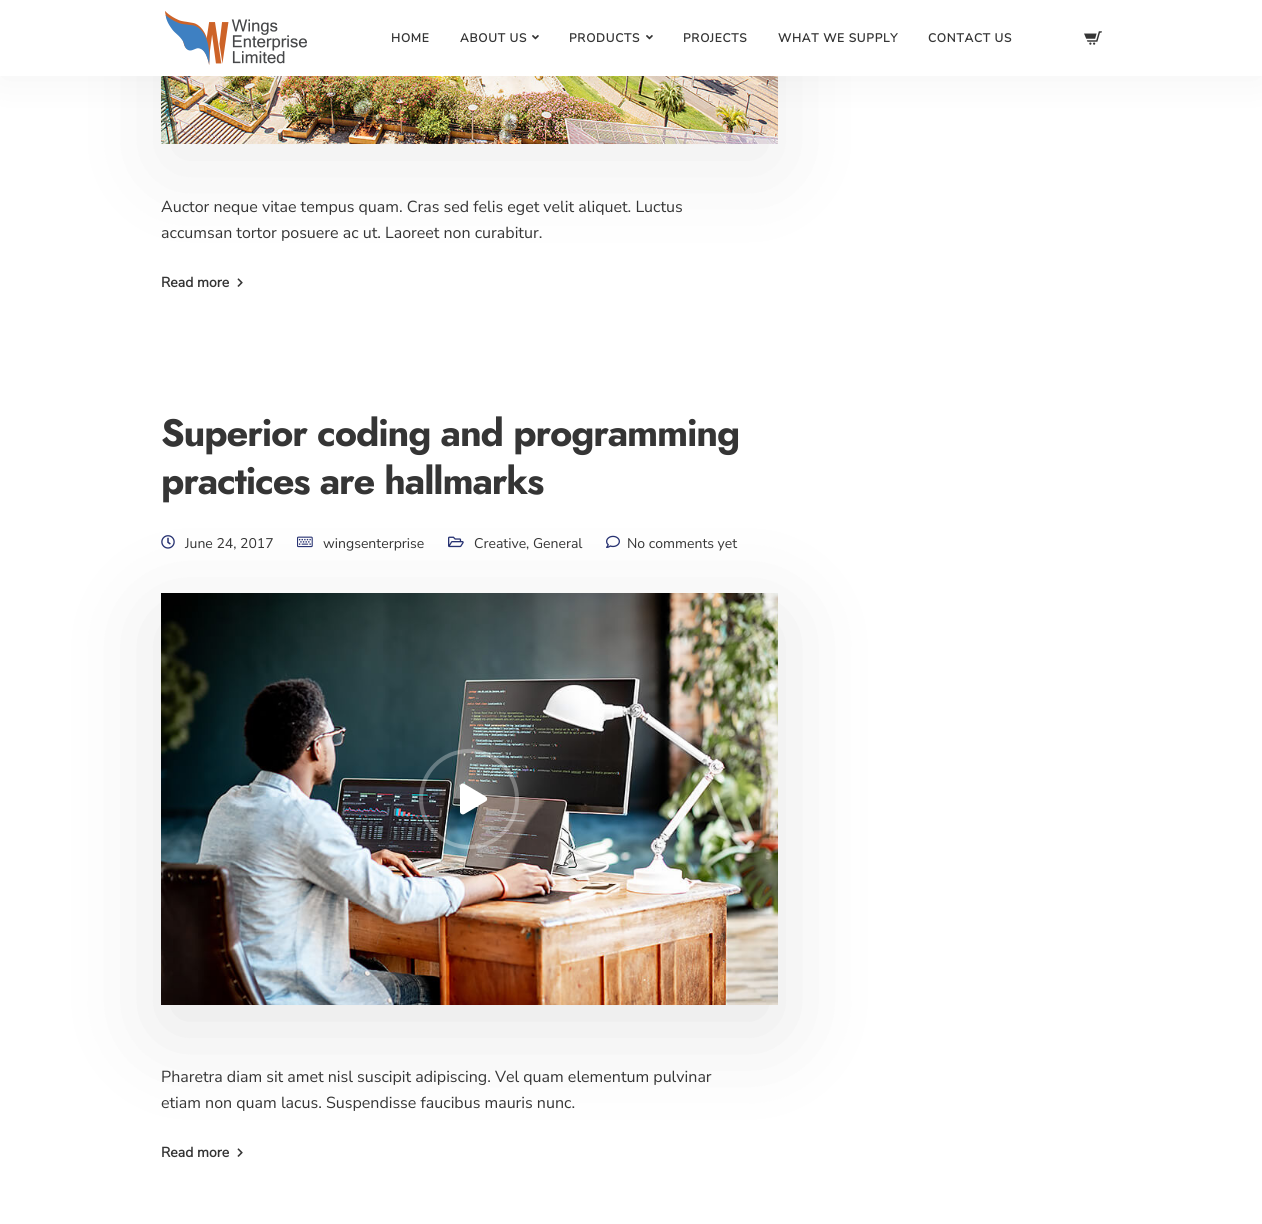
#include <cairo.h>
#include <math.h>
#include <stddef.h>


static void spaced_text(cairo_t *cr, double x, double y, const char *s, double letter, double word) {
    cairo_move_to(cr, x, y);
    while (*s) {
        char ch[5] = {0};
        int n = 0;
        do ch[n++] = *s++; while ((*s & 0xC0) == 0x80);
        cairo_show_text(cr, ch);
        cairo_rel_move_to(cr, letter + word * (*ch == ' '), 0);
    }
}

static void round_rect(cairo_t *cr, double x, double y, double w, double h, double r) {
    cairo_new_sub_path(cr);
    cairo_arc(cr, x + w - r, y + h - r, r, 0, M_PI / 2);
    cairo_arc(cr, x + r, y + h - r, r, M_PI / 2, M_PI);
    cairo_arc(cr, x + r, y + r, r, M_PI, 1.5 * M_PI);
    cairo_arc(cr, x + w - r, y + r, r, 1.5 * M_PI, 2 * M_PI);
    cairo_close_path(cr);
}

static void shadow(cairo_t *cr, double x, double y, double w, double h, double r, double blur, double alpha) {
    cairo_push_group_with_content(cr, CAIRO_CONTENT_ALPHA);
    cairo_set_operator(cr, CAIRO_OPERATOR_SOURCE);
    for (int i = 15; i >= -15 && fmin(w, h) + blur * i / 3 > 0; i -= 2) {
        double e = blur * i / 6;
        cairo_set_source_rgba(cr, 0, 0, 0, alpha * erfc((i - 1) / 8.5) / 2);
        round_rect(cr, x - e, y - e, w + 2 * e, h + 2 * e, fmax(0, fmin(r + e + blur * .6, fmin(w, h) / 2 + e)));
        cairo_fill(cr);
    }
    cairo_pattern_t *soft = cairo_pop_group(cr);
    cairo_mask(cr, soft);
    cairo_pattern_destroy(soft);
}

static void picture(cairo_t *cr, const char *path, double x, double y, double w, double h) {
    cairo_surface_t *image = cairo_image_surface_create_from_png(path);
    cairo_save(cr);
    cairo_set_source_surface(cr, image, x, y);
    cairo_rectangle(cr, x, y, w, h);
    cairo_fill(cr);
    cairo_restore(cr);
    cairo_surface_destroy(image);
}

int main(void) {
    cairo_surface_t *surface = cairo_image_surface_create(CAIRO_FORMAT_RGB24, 1262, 1224);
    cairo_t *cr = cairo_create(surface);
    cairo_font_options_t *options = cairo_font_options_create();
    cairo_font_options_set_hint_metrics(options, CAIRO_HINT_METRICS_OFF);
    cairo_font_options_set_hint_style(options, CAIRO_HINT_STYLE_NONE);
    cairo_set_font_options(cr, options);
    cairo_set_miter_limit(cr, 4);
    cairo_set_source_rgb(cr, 1, 1, 1);
    cairo_paint(cr);
    cairo_set_source_rgb(cr, 0, 0, 0);
    shadow(cr, 161, -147, 617, 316, 0, 49, 0.07);
    picture(cr, "img4.png", 161, 76, 617, 68);
    cairo_set_source_rgb(cr, 0.059, 0.059, 0.059);
    shadow(cr, 0, 2, 1262, 76, 0, 20, 0.05);
    cairo_set_source_rgb(cr, 1, 1, 1);
    cairo_rectangle(cr, 0, 0, 1262, 76);
    cairo_fill(cr);
    picture(cr, "img1.png", 165, 11, 142, 54);
    cairo_select_font_face(cr, "Nunito Sans", CAIRO_FONT_SLANT_NORMAL, CAIRO_FONT_WEIGHT_BOLD);
    cairo_set_font_size(cr, 12);
    cairo_set_source_rgb(cr, 0.208, 0.208, 0.208);
    spaced_text(cr, 391, 42, "HOME", 0.75, 0);
    spaced_text(cr, 460, 42, "ABOUT US", 0.75, 0);
    picture(cr, "img2.png", 532, 35, 7, 5);
    spaced_text(cr, 569, 42, "PRODUCTS", 0.75, 0);
    picture(cr, "img2.png", 646, 35, 7, 5);
    spaced_text(cr, 683, 42, "PROJECTS", 0.75, 0);
    spaced_text(cr, 778, 42, "WHAT WE SUPPLY", 0.75, 0);
    spaced_text(cr, 928, 42, "CONTACT US", 0.75, 0);
    picture(cr, "img3.png", 1084, 31, 18, 14);
    cairo_select_font_face(cr, "Nunito Sans ExtraLight", CAIRO_FONT_SLANT_NORMAL, CAIRO_FONT_WEIGHT_NORMAL);
    cairo_set_font_size(cr, 16);
    cairo_move_to(cr, 161, 212);
    cairo_show_text(cr, "Auctor neque vitae tempus quam. Cras sed felis eget velit aliquet. Luctus");
    cairo_move_to(cr, 161, 238);
    cairo_show_text(cr, "accumsan tortor posuere ac ut. Laoreet non curabitur.");
    cairo_select_font_face(cr, "Nunito Sans", CAIRO_FONT_SLANT_NORMAL, CAIRO_FONT_WEIGHT_BOLD);
    cairo_set_font_size(cr, 14);
    cairo_move_to(cr, 161, 287);
    cairo_show_text(cr, "Read more");
    picture(cr, "img5.png", 237, 278, 6, 9);
    cairo_select_font_face(cr, "Jost", CAIRO_FONT_SLANT_NORMAL, CAIRO_FONT_WEIGHT_BOLD);
    cairo_set_font_size(cr, 38);
    spaced_text(cr, 161, 446, "Superior coding and programming", -1.15, 0);
    spaced_text(cr, 161, 494, "practices are hallmarks", -1.15, 0);
    picture(cr, "img8.png", 161, 535, 14, 14);
    picture(cr, "img9.png", 297, 536, 16, 12);
    picture(cr, "img10.png", 448, 536, 16, 12);
    picture(cr, "img11.png", 606, 535, 14, 13);
    picture(cr, "img12.png", 237, 1148, 6, 9);
    cairo_set_source_rgb(cr, 0, 0, 0);
    shadow(cr, 161, 618, 617, 412, 0, 49, 0.1);
    picture(cr, "img6.png", 161, 593, 617, 412);
    cairo_arc(cr, 469, 799, 48, 0, 2 * M_PI);
    cairo_set_source_rgba(cr, 1, 1, 1, 0.3);
    cairo_set_line_width(cr, 4);
    cairo_stroke(cr);
    picture(cr, "img7.png", 460, 783, 28, 32);
    cairo_select_font_face(cr, "Nunito Sans ExtraLight", CAIRO_FONT_SLANT_NORMAL, CAIRO_FONT_WEIGHT_NORMAL);
    cairo_set_font_size(cr, 14);
    cairo_set_source_rgb(cr, 0.208, 0.208, 0.208);
    cairo_move_to(cr, 185, 548);
    cairo_show_text(cr, "June 24, 2017");
    cairo_move_to(cr, 323, 548);
    cairo_show_text(cr, "wingsenterprise");
    cairo_move_to(cr, 474, 548);
    cairo_show_text(cr, "Creative, General");
    cairo_move_to(cr, 627, 548);
    cairo_show_text(cr, "No comments yet");
    cairo_set_font_size(cr, 16);
    cairo_move_to(cr, 161, 1082);
    cairo_show_text(cr, "Pharetra diam sit amet nisl suscipit adipiscing. Vel quam elementum pulvinar");
    cairo_move_to(cr, 161, 1108);
    cairo_show_text(cr, "etiam non quam lacus. Suspendisse faucibus mauris nunc.");
    cairo_select_font_face(cr, "Nunito Sans", CAIRO_FONT_SLANT_NORMAL, CAIRO_FONT_WEIGHT_BOLD);
    cairo_set_font_size(cr, 14);
    cairo_move_to(cr, 161, 1157);
    cairo_show_text(cr, "Read more");
    cairo_surface_write_to_png(surface, "page.png");
    cairo_font_options_destroy(options);
    cairo_destroy(cr);
    cairo_surface_destroy(surface);
    return 0;
}
